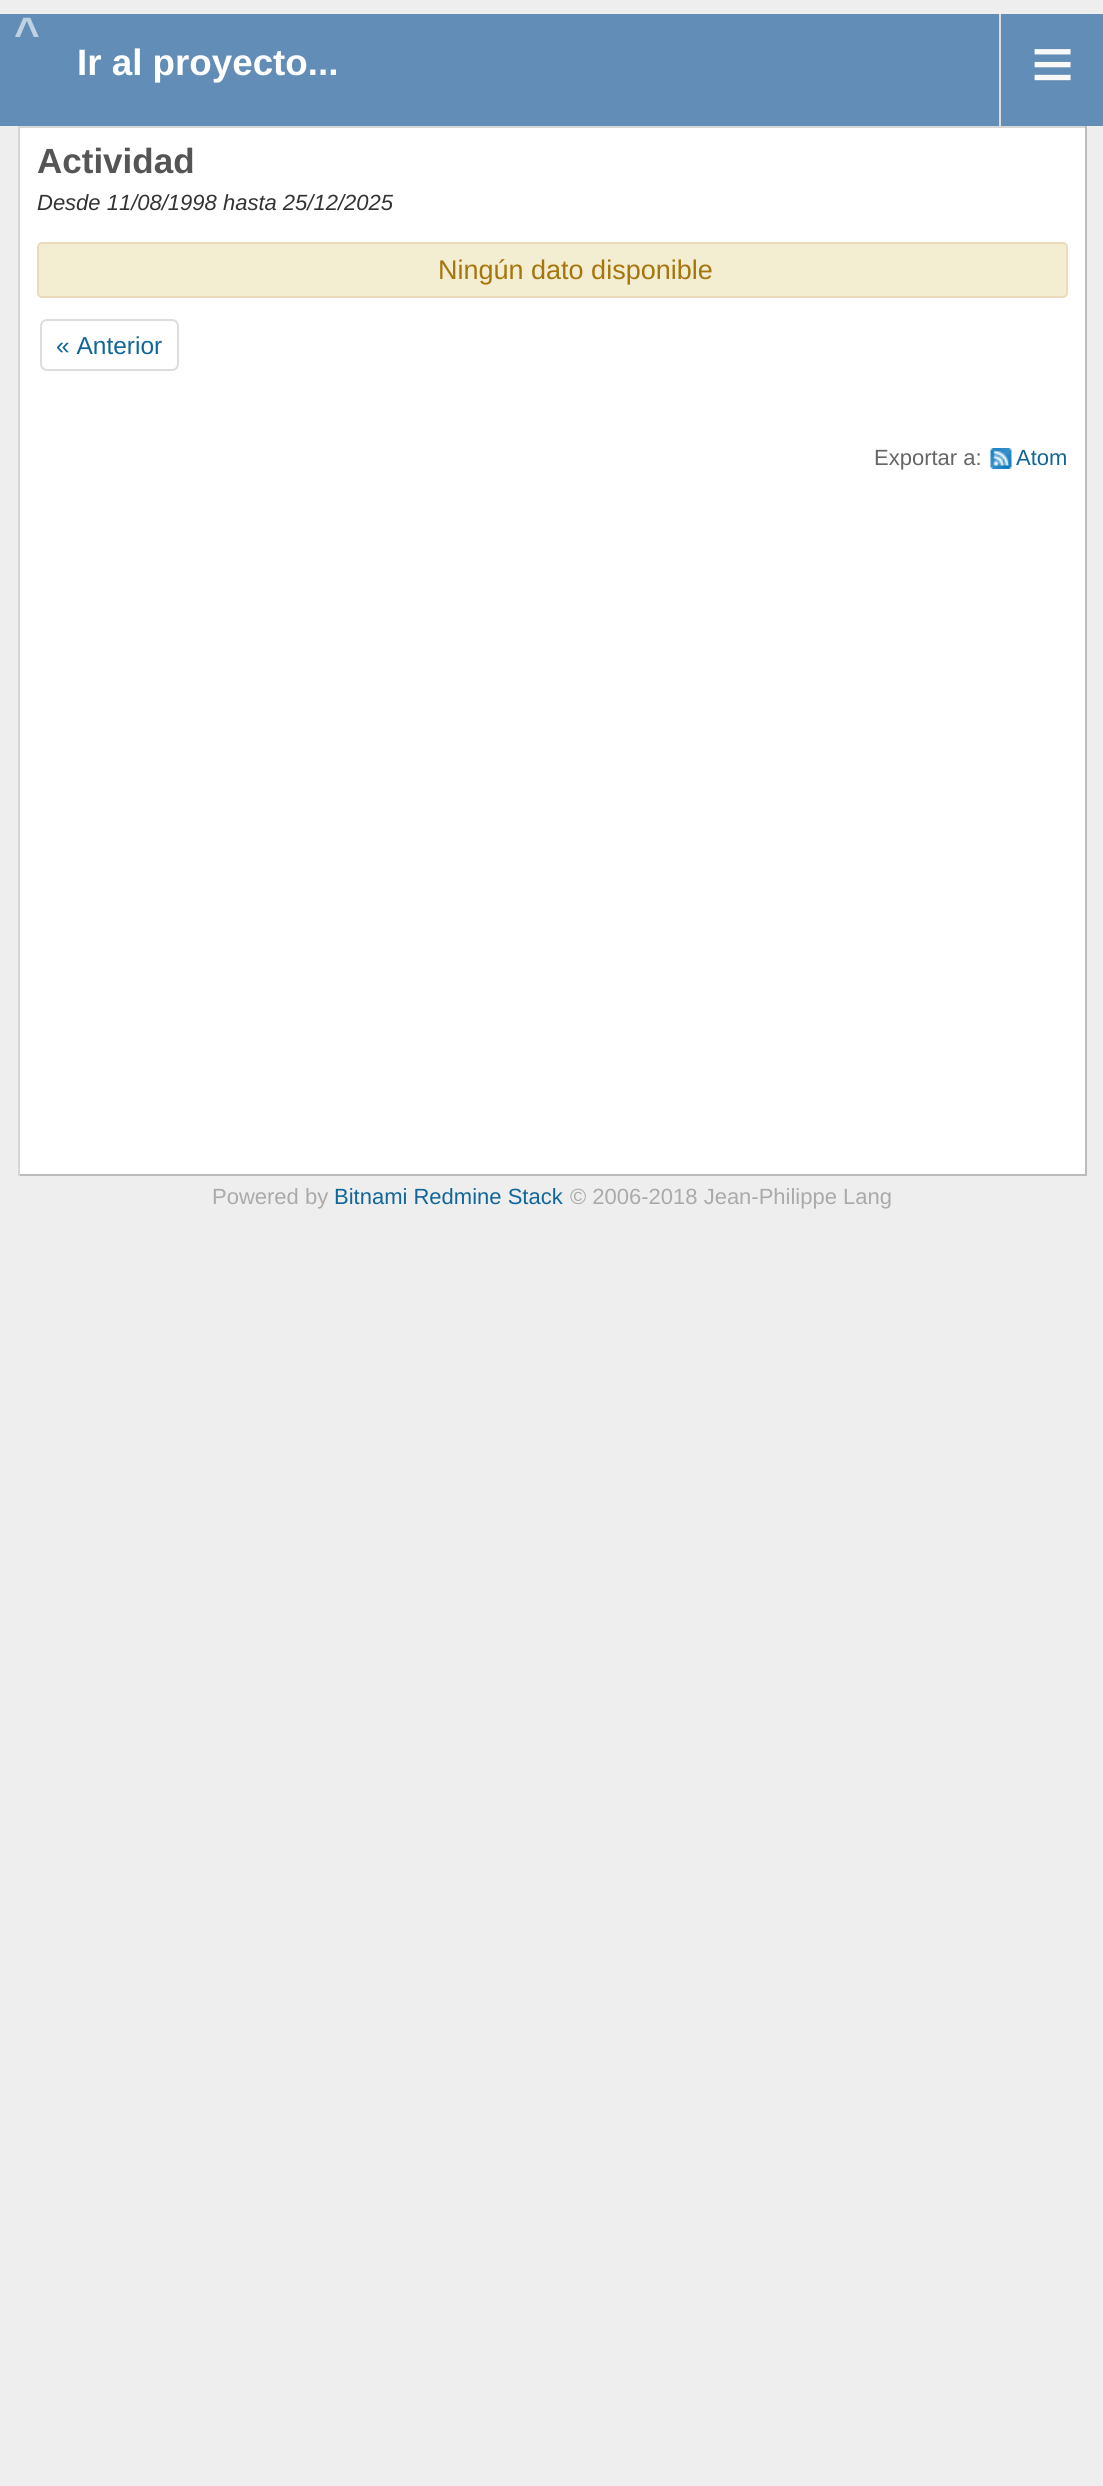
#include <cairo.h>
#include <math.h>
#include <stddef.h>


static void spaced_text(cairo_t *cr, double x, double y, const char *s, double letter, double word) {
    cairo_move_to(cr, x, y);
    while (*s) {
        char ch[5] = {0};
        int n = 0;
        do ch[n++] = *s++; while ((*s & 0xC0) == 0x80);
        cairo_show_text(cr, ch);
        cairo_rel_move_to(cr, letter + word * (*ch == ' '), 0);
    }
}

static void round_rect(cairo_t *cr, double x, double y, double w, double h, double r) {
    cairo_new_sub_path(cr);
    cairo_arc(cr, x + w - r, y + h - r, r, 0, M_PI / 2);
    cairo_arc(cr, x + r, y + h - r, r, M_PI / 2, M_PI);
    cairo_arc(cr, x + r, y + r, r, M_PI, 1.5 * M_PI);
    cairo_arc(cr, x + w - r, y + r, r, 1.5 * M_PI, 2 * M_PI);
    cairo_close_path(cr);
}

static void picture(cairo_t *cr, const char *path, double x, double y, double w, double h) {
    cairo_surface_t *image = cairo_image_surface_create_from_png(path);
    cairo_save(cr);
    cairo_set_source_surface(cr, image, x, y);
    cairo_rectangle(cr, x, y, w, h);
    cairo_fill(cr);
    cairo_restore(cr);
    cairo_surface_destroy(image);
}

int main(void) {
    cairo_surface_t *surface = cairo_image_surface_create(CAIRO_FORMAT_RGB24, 1103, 2486);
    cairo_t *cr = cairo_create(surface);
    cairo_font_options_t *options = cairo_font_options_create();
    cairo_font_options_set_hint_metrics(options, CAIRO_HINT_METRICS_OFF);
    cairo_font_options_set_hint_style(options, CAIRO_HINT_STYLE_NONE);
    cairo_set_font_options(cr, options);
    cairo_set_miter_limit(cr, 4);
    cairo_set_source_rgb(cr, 0.933, 0.933, 0.933);
    cairo_paint(cr);
    cairo_set_source_rgb(cr, 0.384, 0.553, 0.714);
    cairo_rectangle(cr, 0, 14, 1103, 112);
    cairo_fill(cr);
    cairo_select_font_face(cr, "Liberation Sans", CAIRO_FONT_SLANT_NORMAL, CAIRO_FONT_WEIGHT_BOLD);
    cairo_set_font_size(cr, 44);
    cairo_set_source_rgb(cr, 0.753, 0.82, 0.886);
    spaced_text(cr, 14, 48, "^", 6, 0);
    cairo_set_font_size(cr, 36.75);
    cairo_set_source_rgb(cr, 1, 1, 1);
    cairo_move_to(cr, 77, 75);
    cairo_show_text(cr, "Ir al proyecto...");
    cairo_set_source_rgb(cr, 0.867, 0.867, 0.867);
    cairo_rectangle(cr, 999, 14, 2, 112);
    cairo_fill(cr);
    cairo_select_font_face(cr, "Liberation Sans", CAIRO_FONT_SLANT_NORMAL, CAIRO_FONT_WEIGHT_NORMAL);
    cairo_set_font_size(cr, 74);
    cairo_set_source_rgb(cr, 0.973, 0.973, 0.973);
    cairo_move_to(cr, 1031, 89);
    cairo_show_text(cr, "≡");
    cairo_set_source_rgb(cr, 1, 1, 1);
    cairo_rectangle(cr, 20, 128, 1065, 1046);
    cairo_fill(cr);
    cairo_set_source_rgb(cr, 0.843, 0.843, 0.843);
    cairo_rectangle(cr, 18, 126, 1069, 2);
    cairo_fill(cr);
    cairo_set_source_rgb(cr, 0.733, 0.733, 0.733);
    cairo_rectangle(cr, 1085, 126, 2, 1050);
    cairo_fill(cr);
    cairo_rectangle(cr, 18, 1174, 1069, 2);
    cairo_fill(cr);
    cairo_set_source_rgb(cr, 0.843, 0.843, 0.843);
    cairo_rectangle(cr, 18, 126, 2, 1050);
    cairo_fill(cr);
    cairo_select_font_face(cr, "Liberation Sans", CAIRO_FONT_SLANT_NORMAL, CAIRO_FONT_WEIGHT_BOLD);
    cairo_set_font_size(cr, 35);
    cairo_set_source_rgb(cr, 0.333, 0.333, 0.333);
    cairo_move_to(cr, 37, 173);
    cairo_show_text(cr, "Actividad");
    cairo_select_font_face(cr, "Liberation Sans", CAIRO_FONT_SLANT_ITALIC, CAIRO_FONT_WEIGHT_NORMAL);
    cairo_set_font_size(cr, 22);
    cairo_set_source_rgb(cr, 0.2, 0.2, 0.2);
    cairo_move_to(cr, 37, 210);
    cairo_show_text(cr, "Desde 11/08/1998 hasta 25/12/2025");
    cairo_set_source_rgb(cr, 0.953, 0.929, 0.82);
    round_rect(cr, 38, 243, 1029, 54, 4);
    cairo_fill_preserve(cr);
    cairo_set_source_rgb(cr, 0.918, 0.859, 0.737);
    cairo_stroke(cr);
    cairo_select_font_face(cr, "Liberation Sans", CAIRO_FONT_SLANT_NORMAL, CAIRO_FONT_WEIGHT_NORMAL);
    cairo_set_font_size(cr, 27);
    cairo_set_source_rgb(cr, 0.651, 0.459, 0.047);
    cairo_move_to(cr, 438, 279);
    cairo_show_text(cr, "Ningún dato disponible");
    round_rect(cr, 41, 320, 137, 50, 6);
    cairo_set_source_rgb(cr, 0.867, 0.867, 0.867);
    cairo_stroke(cr);
    cairo_set_font_size(cr, 24.5);
    cairo_set_source_rgb(cr, 0.067, 0.4, 0.6);
    cairo_move_to(cr, 56, 354);
    cairo_show_text(cr, "« Anterior");
    cairo_set_font_size(cr, 22);
    cairo_set_source_rgb(cr, 0.4, 0.4, 0.4);
    cairo_move_to(cr, 874, 465);
    cairo_show_text(cr, "Exportar a:");
    picture(cr, "img1.png", 990, 448, 22, 21);
    cairo_set_source_rgb(cr, 0.067, 0.4, 0.6);
    cairo_move_to(cr, 1016, 465);
    cairo_show_text(cr, "Atom");
    cairo_set_source_rgb(cr, 0.667, 0.667, 0.667);
    cairo_move_to(cr, 212, 1204);
    cairo_show_text(cr, "Powered by");
    cairo_set_source_rgb(cr, 0.067, 0.4, 0.6);
    cairo_move_to(cr, 334, 1204);
    cairo_show_text(cr, "Bitnami Redmine Stack");
    cairo_set_source_rgb(cr, 0.667, 0.667, 0.667);
    cairo_move_to(cr, 570, 1204);
    cairo_show_text(cr, "© 2006-2018 Jean-Philippe Lang");
    cairo_surface_write_to_png(surface, "page.png");
    cairo_font_options_destroy(options);
    cairo_destroy(cr);
    cairo_surface_destroy(surface);
    return 0;
}
